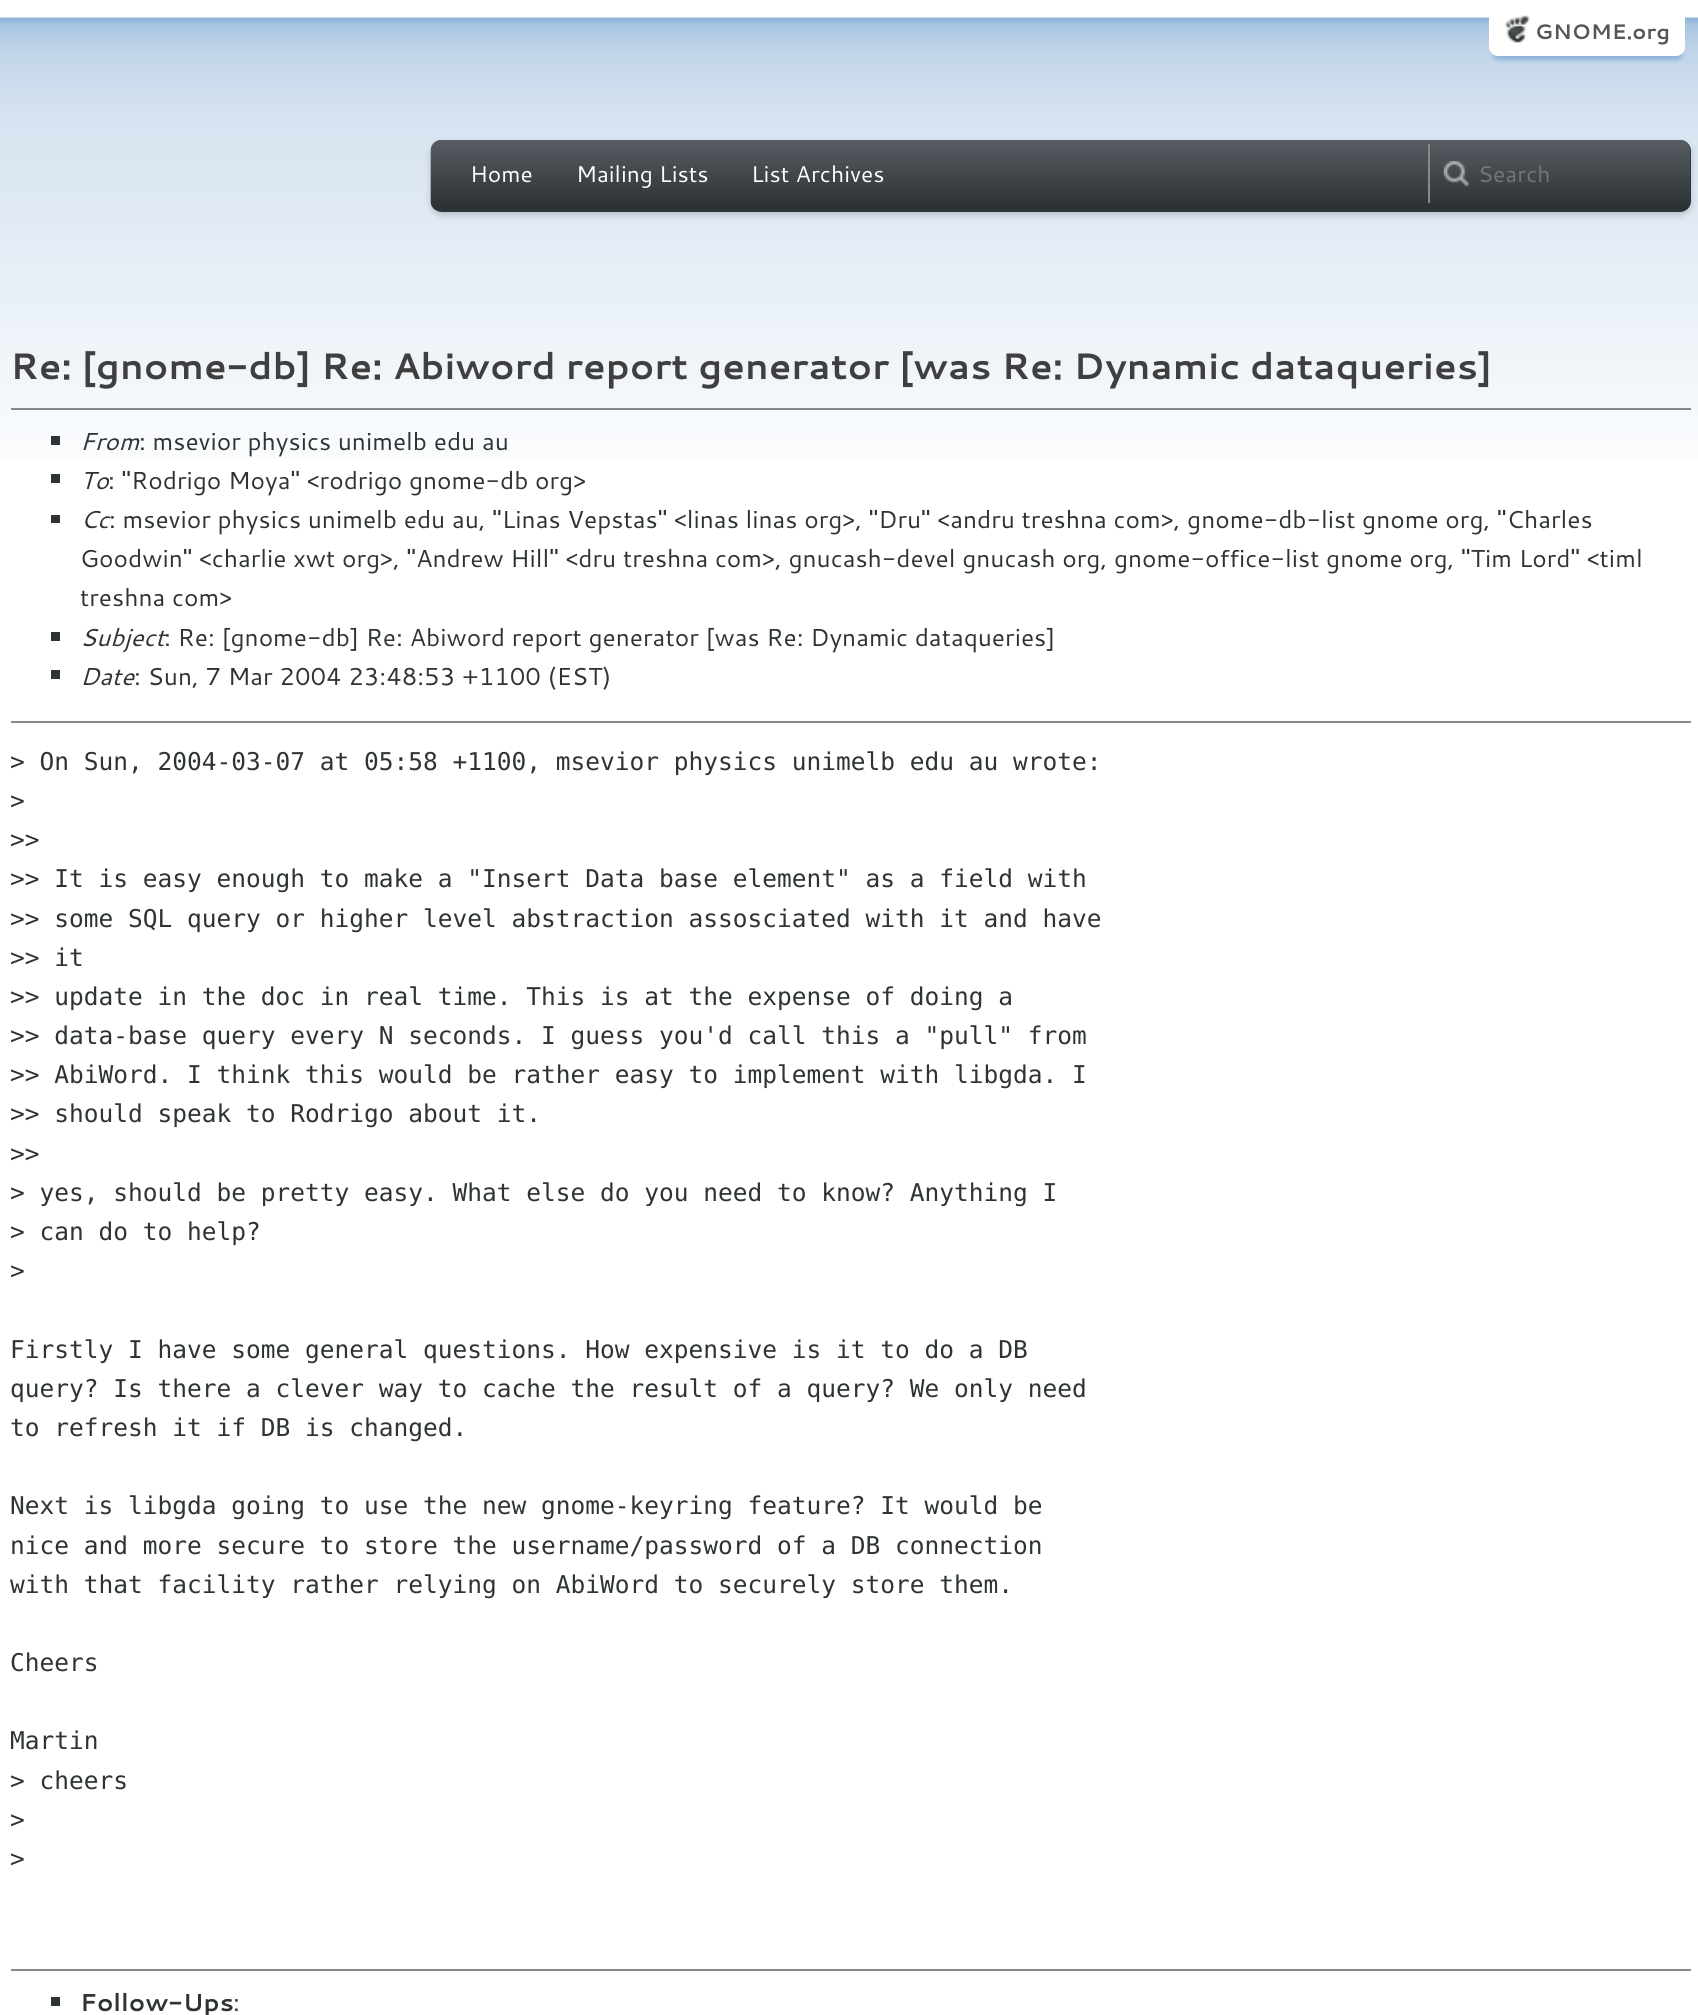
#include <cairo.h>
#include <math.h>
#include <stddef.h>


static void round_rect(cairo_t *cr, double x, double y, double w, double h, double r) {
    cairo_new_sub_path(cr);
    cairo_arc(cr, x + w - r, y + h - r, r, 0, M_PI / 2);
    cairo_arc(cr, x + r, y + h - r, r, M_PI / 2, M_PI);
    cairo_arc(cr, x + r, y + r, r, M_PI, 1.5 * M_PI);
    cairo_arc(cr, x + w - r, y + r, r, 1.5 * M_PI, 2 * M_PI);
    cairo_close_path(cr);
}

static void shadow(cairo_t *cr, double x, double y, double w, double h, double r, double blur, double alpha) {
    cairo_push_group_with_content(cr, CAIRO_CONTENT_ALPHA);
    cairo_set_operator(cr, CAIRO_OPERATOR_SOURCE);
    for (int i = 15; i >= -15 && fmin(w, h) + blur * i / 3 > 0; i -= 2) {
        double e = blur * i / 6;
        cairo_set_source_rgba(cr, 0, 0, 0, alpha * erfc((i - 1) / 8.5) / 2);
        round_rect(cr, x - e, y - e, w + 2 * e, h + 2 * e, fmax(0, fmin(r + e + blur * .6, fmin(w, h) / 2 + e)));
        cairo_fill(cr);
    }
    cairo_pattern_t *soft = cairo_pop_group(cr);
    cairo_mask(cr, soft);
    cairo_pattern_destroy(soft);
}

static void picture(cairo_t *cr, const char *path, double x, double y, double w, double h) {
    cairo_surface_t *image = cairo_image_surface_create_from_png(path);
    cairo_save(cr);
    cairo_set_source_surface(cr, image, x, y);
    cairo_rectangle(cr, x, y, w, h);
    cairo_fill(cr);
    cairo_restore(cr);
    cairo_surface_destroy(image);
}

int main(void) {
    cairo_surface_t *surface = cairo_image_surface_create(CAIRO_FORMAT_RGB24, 1698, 2015);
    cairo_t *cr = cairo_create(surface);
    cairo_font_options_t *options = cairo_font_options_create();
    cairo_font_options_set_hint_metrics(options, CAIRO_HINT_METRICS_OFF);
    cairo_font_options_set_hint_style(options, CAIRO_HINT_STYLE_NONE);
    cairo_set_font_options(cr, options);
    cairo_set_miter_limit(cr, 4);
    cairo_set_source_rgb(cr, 1, 1, 1);
    cairo_paint(cr);
    picture(cr, "img1.png", 0, 17, 1698, 442);
    cairo_set_source_rgb(cr, 0.561, 0.702, 0.851);
    shadow(cr, 1493, 18, 189, 42, 5, 2, 1);
    cairo_set_source_rgb(cr, 1, 1, 1);
    round_rect(cr, 1489, 7, 196, 49, 9);
    cairo_fill(cr);
    picture(cr, "img2.png", 1504, 15, 26, 28);
    cairo_select_font_face(cr, "Cantarell", CAIRO_FONT_SLANT_NORMAL, CAIRO_FONT_WEIGHT_BOLD);
    cairo_set_font_size(cr, 21);
    cairo_set_source_rgb(cr, 0.333, 0.341, 0.325);
    cairo_move_to(cr, 1535, 39);
    cairo_show_text(cr, "GNOME.org");
    cairo_set_source_rgb(cr, 0, 0, 0);
    shadow(cr, 431, 144, 1260, 71, 11, 3.5, 0.2);
    cairo_set_source_rgb(cr, 0.18, 0.204, 0.212);
    round_rect(cr, 431, 140, 1260, 72, 11);
    cairo_fill(cr);
    picture(cr, "img3.png", 430, 140, 1261, 70);
    cairo_select_font_face(cr, "Cantarell", CAIRO_FONT_SLANT_NORMAL, CAIRO_FONT_WEIGHT_NORMAL);
    cairo_set_font_size(cr, 22.75);
    cairo_set_source_rgb(cr, 1, 1, 1);
    cairo_move_to(cr, 470, 182);
    cairo_show_text(cr, "Home");
    cairo_move_to(cr, 576, 182);
    cairo_show_text(cr, "Mailing Lists");
    cairo_move_to(cr, 751, 182);
    cairo_show_text(cr, "List Archives");
    picture(cr, "img4.png", 1443, 161, 27, 26);
    cairo_set_source_rgb(cr, 0.533, 0.533, 0.533);
    cairo_rectangle(cr, 1428, 144, 2, 59);
    cairo_fill(cr);
    cairo_set_source_rgb(cr, 0.459, 0.459, 0.459);
    cairo_move_to(cr, 1478, 182);
    cairo_show_text(cr, "Search");
    cairo_select_font_face(cr, "Cantarell", CAIRO_FONT_SLANT_NORMAL, CAIRO_FONT_WEIGHT_BOLD);
    cairo_set_font_size(cr, 36.75);
    cairo_set_source_rgb(cr, 0.247, 0.247, 0.247);
    cairo_move_to(cr, 10, 379);
    cairo_show_text(cr, "Re: [gnome-db] Re: Abiword report generator [was Re: Dynamic dataqueries]");
    cairo_set_source_rgb(cr, 0.533, 0.533, 0.533);
    cairo_rectangle(cr, 11, 408, 1680, 2);
    cairo_fill(cr);
    cairo_set_source_rgb(cr, 0.18, 0.204, 0.212);
    cairo_rectangle(cr, 51, 436, 9, 9);
    cairo_fill(cr);
    cairo_select_font_face(cr, "Cantarell", CAIRO_FONT_SLANT_ITALIC, CAIRO_FONT_WEIGHT_NORMAL);
    cairo_set_font_size(cr, 24.5);
    cairo_move_to(cr, 80, 450);
    cairo_show_text(cr, "From");
    cairo_select_font_face(cr, "Cantarell", CAIRO_FONT_SLANT_NORMAL, CAIRO_FONT_WEIGHT_NORMAL);
    cairo_move_to(cr, 139, 450);
    cairo_show_text(cr, ": msevior physics unimelb edu au");
    cairo_rectangle(cr, 51, 474, 9, 9);
    cairo_fill(cr);
    cairo_select_font_face(cr, "Cantarell", CAIRO_FONT_SLANT_ITALIC, CAIRO_FONT_WEIGHT_NORMAL);
    cairo_move_to(cr, 80, 489);
    cairo_show_text(cr, "To");
    cairo_select_font_face(cr, "Cantarell", CAIRO_FONT_SLANT_NORMAL, CAIRO_FONT_WEIGHT_NORMAL);
    cairo_move_to(cr, 108, 489);
    cairo_show_text(cr, ": \"Rodrigo Moya\" <rodrigo gnome-db org>");
    cairo_rectangle(cr, 51, 515, 9, 8);
    cairo_fill(cr);
    cairo_select_font_face(cr, "Cantarell", CAIRO_FONT_SLANT_ITALIC, CAIRO_FONT_WEIGHT_NORMAL);
    cairo_move_to(cr, 80, 528);
    cairo_show_text(cr, "Cc");
    cairo_select_font_face(cr, "Cantarell", CAIRO_FONT_SLANT_NORMAL, CAIRO_FONT_WEIGHT_NORMAL);
    cairo_move_to(cr, 109, 528);
    cairo_show_text(cr, ": msevior physics unimelb edu au, \"Linas Vepstas\" <linas linas org>, \"Dru\" <andru treshna com>, gnome-db-list gnome org, \"Charles");
    cairo_move_to(cr, 80, 567);
    cairo_show_text(cr, "Goodwin\" <charlie xwt org>, \"Andrew Hill\" <dru treshna com>, gnucash-devel gnucash org, gnome-office-list gnome org, \"Tim Lord\" <timl");
    cairo_move_to(cr, 80, 606);
    cairo_show_text(cr, "treshna com>");
    cairo_rectangle(cr, 51, 632, 9, 9);
    cairo_fill(cr);
    cairo_select_font_face(cr, "Cantarell", CAIRO_FONT_SLANT_ITALIC, CAIRO_FONT_WEIGHT_NORMAL);
    cairo_move_to(cr, 80, 646);
    cairo_show_text(cr, "Subject");
    cairo_select_font_face(cr, "Cantarell", CAIRO_FONT_SLANT_NORMAL, CAIRO_FONT_WEIGHT_NORMAL);
    cairo_move_to(cr, 164, 646);
    cairo_show_text(cr, ": Re: [gnome-db] Re: Abiword report generator [was Re: Dynamic dataqueries]");
    cairo_rectangle(cr, 51, 670, 9, 9);
    cairo_fill(cr);
    cairo_select_font_face(cr, "Cantarell", CAIRO_FONT_SLANT_ITALIC, CAIRO_FONT_WEIGHT_NORMAL);
    cairo_move_to(cr, 80, 685);
    cairo_show_text(cr, "Date");
    cairo_select_font_face(cr, "Cantarell", CAIRO_FONT_SLANT_NORMAL, CAIRO_FONT_WEIGHT_NORMAL);
    cairo_move_to(cr, 134, 685);
    cairo_show_text(cr, ": Sun, 7 Mar 2004 23:48:53 +1100 (EST)");
    cairo_set_source_rgb(cr, 0.533, 0.533, 0.533);
    cairo_rectangle(cr, 11, 721, 1680, 2);
    cairo_fill(cr);
    cairo_select_font_face(cr, "DejaVu Sans Mono", CAIRO_FONT_SLANT_NORMAL, CAIRO_FONT_WEIGHT_NORMAL);
    cairo_set_source_rgb(cr, 0.18, 0.204, 0.212);
    cairo_move_to(cr, 10, 770);
    cairo_show_text(cr, "> On Sun, 2004-03-07 at 05:58 +1100, msevior physics unimelb edu au wrote:");
    cairo_move_to(cr, 10, 809);
    cairo_show_text(cr, ">");
    cairo_move_to(cr, 10, 848);
    cairo_show_text(cr, ">>");
    cairo_move_to(cr, 10, 887);
    cairo_show_text(cr, ">> It is easy enough to make a \"Insert Data base element\" as a field with");
    cairo_move_to(cr, 10, 927);
    cairo_show_text(cr, ">> some SQL query or higher level abstraction assosciated with it and have");
    cairo_move_to(cr, 10, 966);
    cairo_show_text(cr, ">> it");
    cairo_move_to(cr, 10, 1005);
    cairo_show_text(cr, ">> update in the doc in real time. This is at the expense of doing a");
    cairo_move_to(cr, 10, 1044);
    cairo_show_text(cr, ">> data-base query every N seconds. I guess you'd call this a \"pull\" from");
    cairo_move_to(cr, 10, 1083);
    cairo_show_text(cr, ">> AbiWord. I think this would be rather easy to implement with libgda. I");
    cairo_move_to(cr, 10, 1122);
    cairo_show_text(cr, ">> should speak to Rodrigo about it.");
    cairo_move_to(cr, 10, 1162);
    cairo_show_text(cr, ">>");
    cairo_move_to(cr, 10, 1201);
    cairo_show_text(cr, "> yes, should be pretty easy. What else do you need to know? Anything I");
    cairo_move_to(cr, 10, 1240);
    cairo_show_text(cr, "> can do to help?");
    cairo_move_to(cr, 10, 1279);
    cairo_show_text(cr, ">");
    cairo_move_to(cr, 10, 1358);
    cairo_show_text(cr, "Firstly I have some general questions. How expensive is it to do a DB");
    cairo_move_to(cr, 10, 1397);
    cairo_show_text(cr, "query? Is there a clever way to cache the result of a query? We only need");
    cairo_move_to(cr, 10, 1436);
    cairo_show_text(cr, "to refresh it if DB is changed.");
    cairo_move_to(cr, 10, 1514);
    cairo_show_text(cr, "Next is libgda going to use the new gnome-keyring feature? It would be");
    cairo_move_to(cr, 10, 1554);
    cairo_show_text(cr, "nice and more secure to store the username/password of a DB connection");
    cairo_move_to(cr, 10, 1593);
    cairo_show_text(cr, "with that facility rather relying on AbiWord to securely store them.");
    cairo_move_to(cr, 10, 1671);
    cairo_show_text(cr, "Cheers");
    cairo_move_to(cr, 10, 1749);
    cairo_show_text(cr, "Martin");
    cairo_move_to(cr, 10, 1789);
    cairo_show_text(cr, "> cheers");
    cairo_move_to(cr, 10, 1828);
    cairo_show_text(cr, ">");
    cairo_move_to(cr, 10, 1867);
    cairo_show_text(cr, ">");
    cairo_set_source_rgb(cr, 0.533, 0.533, 0.533);
    cairo_rectangle(cr, 11, 1969, 1680, 2);
    cairo_fill(cr);
    cairo_set_source_rgb(cr, 0.18, 0.204, 0.212);
    cairo_rectangle(cr, 51, 1997, 9, 9);
    cairo_fill(cr);
    cairo_select_font_face(cr, "Cantarell", CAIRO_FONT_SLANT_NORMAL, CAIRO_FONT_WEIGHT_BOLD);
    cairo_move_to(cr, 80, 2011);
    cairo_show_text(cr, "Follow-Ups");
    cairo_select_font_face(cr, "Cantarell", CAIRO_FONT_SLANT_NORMAL, CAIRO_FONT_WEIGHT_NORMAL);
    cairo_move_to(cr, 233, 2011);
    cairo_show_text(cr, ":");
    cairo_surface_write_to_png(surface, "page.png");
    cairo_font_options_destroy(options);
    cairo_destroy(cr);
    cairo_surface_destroy(surface);
    return 0;
}
